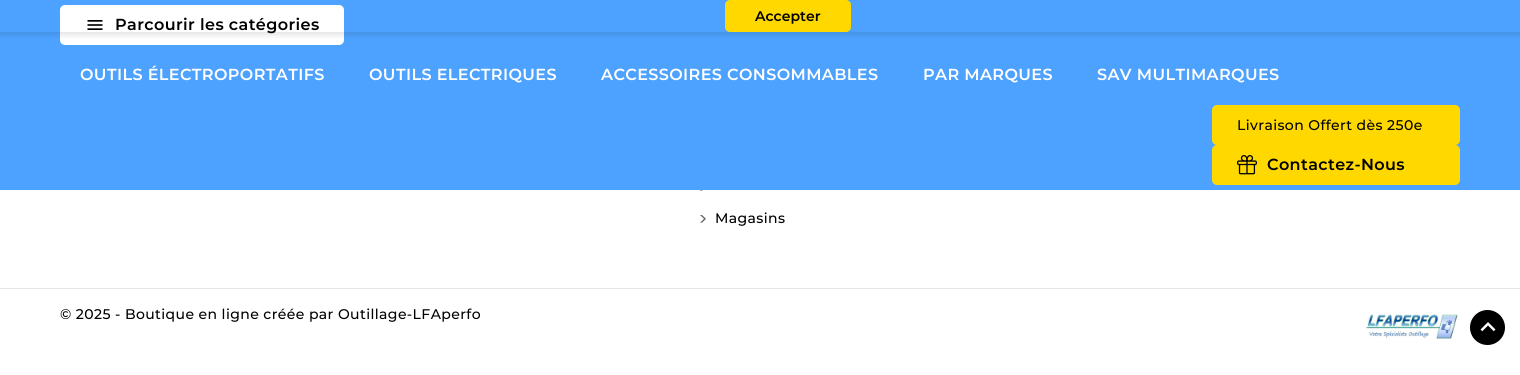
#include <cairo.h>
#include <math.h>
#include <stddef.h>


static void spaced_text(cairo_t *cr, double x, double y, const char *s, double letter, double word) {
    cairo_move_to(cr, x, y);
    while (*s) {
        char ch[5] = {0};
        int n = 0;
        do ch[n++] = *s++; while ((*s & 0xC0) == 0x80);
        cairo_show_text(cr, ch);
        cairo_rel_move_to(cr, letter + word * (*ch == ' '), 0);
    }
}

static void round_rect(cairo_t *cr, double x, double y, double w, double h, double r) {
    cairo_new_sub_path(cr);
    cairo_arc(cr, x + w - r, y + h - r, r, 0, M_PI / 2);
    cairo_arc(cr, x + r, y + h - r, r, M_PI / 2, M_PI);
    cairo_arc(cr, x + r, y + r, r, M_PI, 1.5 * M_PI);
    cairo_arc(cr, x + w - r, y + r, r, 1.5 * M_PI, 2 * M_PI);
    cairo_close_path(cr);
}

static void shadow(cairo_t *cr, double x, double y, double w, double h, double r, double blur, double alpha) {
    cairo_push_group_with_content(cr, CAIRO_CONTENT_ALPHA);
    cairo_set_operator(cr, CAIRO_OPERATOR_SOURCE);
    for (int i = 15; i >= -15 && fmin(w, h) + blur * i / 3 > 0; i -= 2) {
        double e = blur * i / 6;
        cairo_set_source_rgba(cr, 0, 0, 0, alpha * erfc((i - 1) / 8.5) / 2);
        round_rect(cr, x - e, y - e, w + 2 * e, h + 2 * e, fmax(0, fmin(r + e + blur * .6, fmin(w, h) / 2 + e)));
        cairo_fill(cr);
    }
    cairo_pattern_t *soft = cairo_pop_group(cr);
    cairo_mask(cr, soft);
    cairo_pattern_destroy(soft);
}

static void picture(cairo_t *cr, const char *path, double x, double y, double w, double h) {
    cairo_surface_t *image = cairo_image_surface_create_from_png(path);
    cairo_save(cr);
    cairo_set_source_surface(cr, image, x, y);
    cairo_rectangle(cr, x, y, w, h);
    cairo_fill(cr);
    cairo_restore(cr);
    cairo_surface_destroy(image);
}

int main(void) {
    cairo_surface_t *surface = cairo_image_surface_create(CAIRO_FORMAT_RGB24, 1520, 375);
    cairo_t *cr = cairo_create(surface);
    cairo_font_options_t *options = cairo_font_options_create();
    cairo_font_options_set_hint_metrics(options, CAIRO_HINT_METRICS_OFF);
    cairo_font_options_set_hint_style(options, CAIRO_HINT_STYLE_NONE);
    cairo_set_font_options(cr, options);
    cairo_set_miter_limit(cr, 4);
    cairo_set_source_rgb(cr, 1, 1, 1);
    cairo_paint(cr);
    cairo_set_source_rgb(cr, 0.302, 0.635, 1);
    cairo_rectangle(cr, 0, 0, 1520, 190);
    cairo_fill(cr);
    cairo_set_source_rgb(cr, 1, 1, 1);
    round_rect(cr, 60, 5, 284, 40, 5);
    cairo_fill(cr);
    picture(cr, "img5.png", 87, 20, 16, 10);
    cairo_save(cr);
    cairo_rectangle(cr, 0, 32, 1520, 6);
    cairo_clip(cr);
    cairo_set_source_rgb(cr, 0, 0, 0);
    shadow(cr, 0, 0, 1520, 32, 0, 5, 0.2);
    cairo_restore(cr);
    cairo_set_source_rgb(cr, 1, 0.847, 0);
    round_rect(cr, 725, 0, 126, 32, 5);
    cairo_fill(cr);
    cairo_select_font_face(cr, "Montserrat SemiBold", CAIRO_FONT_SLANT_NORMAL, CAIRO_FONT_WEIGHT_NORMAL);
    cairo_set_font_size(cr, 14);
    cairo_set_source_rgb(cr, 0, 0, 0);
    cairo_move_to(cr, 755, 21);
    cairo_show_text(cr, "Accepter");
    picture(cr, "img1.png", 700, 190, 3, 1);
    picture(cr, "img2.png", 700, 215, 6, 8);
    cairo_select_font_face(cr, "Montserrat Medium", CAIRO_FONT_SLANT_NORMAL, CAIRO_FONT_WEIGHT_NORMAL);
    spaced_text(cr, 715, 223, "Magasins", 0.4, 0);
    cairo_set_source_rgb(cr, 0.898, 0.898, 0.898);
    cairo_rectangle(cr, 0, 288, 1520, 1);
    cairo_fill(cr);
    cairo_set_source_rgb(cr, 0, 0, 0);
    spaced_text(cr, 60, 319, "© 2025 - Boutique en ligne créée par Outillage-LFAperfo", 0.4, 0);
    picture(cr, "img3.png", 1366, 314, 92, 25);
    cairo_arc(cr, 1487.5, 327.5, 17.5, 0, 2 * M_PI);
    cairo_fill(cr);
    picture(cr, "img4.png", 1480, 322, 16, 10);
    cairo_select_font_face(cr, "Montserrat SemiBold", CAIRO_FONT_SLANT_NORMAL, CAIRO_FONT_WEIGHT_NORMAL);
    cairo_set_font_size(cr, 16);
    spaced_text(cr, 115, 30, "Parcourir les catégories", 0.4, 0);
    cairo_set_source_rgb(cr, 1, 1, 1);
    spaced_text(cr, 80, 80, "OUTILS ÉLECTROPORTATIFS", 0.4, 0);
    spaced_text(cr, 369, 80, "OUTILS ELECTRIQUES", 0.4, 0);
    spaced_text(cr, 601, 80, "ACCESSOIRES CONSOMMABLES", 0.4, 0);
    spaced_text(cr, 923, 80, "PAR MARQUES", 0.4, 0);
    spaced_text(cr, 1097, 80, "SAV MULTIMARQUES", 0.4, 0);
    cairo_set_source_rgb(cr, 1, 0.847, 0);
    round_rect(cr, 1212, 105, 248, 40, 5);
    cairo_fill(cr);
    cairo_select_font_face(cr, "Montserrat Medium", CAIRO_FONT_SLANT_NORMAL, CAIRO_FONT_WEIGHT_NORMAL);
    cairo_set_font_size(cr, 14);
    cairo_set_source_rgb(cr, 0, 0, 0);
    spaced_text(cr, 1237, 130, "Livraison Offert dès 250e", 0.4, 0);
    cairo_set_source_rgb(cr, 1, 0.847, 0);
    round_rect(cr, 1212, 145, 248, 40, 5);
    cairo_fill(cr);
    picture(cr, "img6.png", 1237, 155, 20, 20);
    cairo_select_font_face(cr, "Montserrat SemiBold", CAIRO_FONT_SLANT_NORMAL, CAIRO_FONT_WEIGHT_NORMAL);
    cairo_set_font_size(cr, 16);
    cairo_set_source_rgb(cr, 0, 0, 0);
    spaced_text(cr, 1267, 170, "Contactez-Nous", 0.4, 0);
    cairo_surface_write_to_png(surface, "page.png");
    cairo_font_options_destroy(options);
    cairo_destroy(cr);
    cairo_surface_destroy(surface);
    return 0;
}
